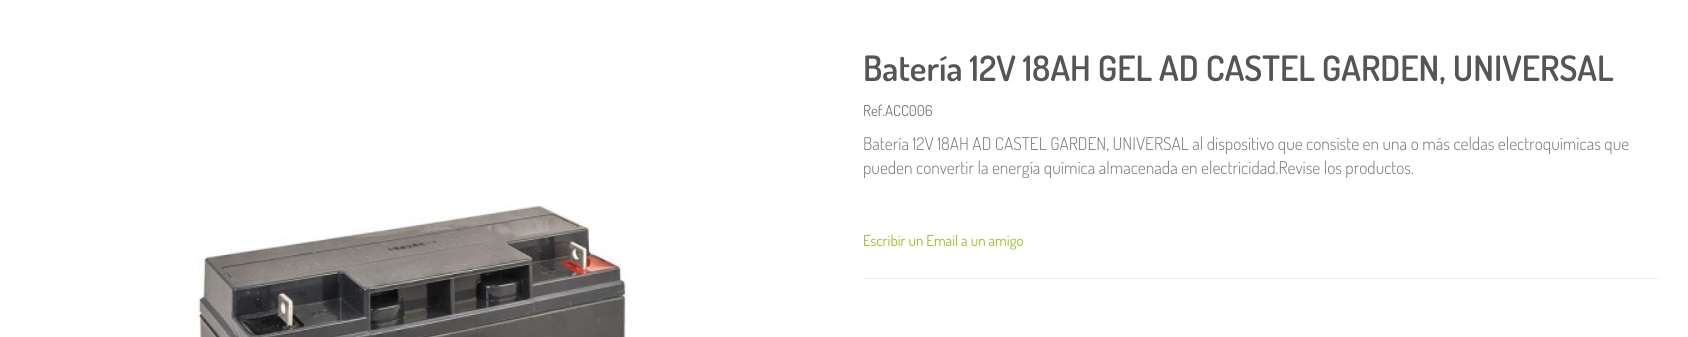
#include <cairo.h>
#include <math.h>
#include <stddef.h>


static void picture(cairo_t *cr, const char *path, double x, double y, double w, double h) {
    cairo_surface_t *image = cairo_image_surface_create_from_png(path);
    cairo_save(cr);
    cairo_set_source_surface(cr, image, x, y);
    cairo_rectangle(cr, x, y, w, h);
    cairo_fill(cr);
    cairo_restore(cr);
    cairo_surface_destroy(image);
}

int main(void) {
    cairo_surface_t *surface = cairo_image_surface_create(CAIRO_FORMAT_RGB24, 1688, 337);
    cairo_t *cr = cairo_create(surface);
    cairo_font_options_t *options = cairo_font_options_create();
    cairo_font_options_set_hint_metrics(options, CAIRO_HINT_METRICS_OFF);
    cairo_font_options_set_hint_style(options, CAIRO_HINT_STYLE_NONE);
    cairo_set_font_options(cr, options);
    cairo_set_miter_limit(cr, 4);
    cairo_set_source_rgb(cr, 1, 1, 1);
    cairo_paint(cr);
    cairo_select_font_face(cr, "Dosis SemiBold", CAIRO_FONT_SLANT_NORMAL, CAIRO_FONT_WEIGHT_NORMAL);
    cairo_set_font_size(cr, 35);
    cairo_set_source_rgb(cr, 0.333, 0.333, 0.333);
    cairo_move_to(cr, 863, 81);
    cairo_show_text(cr, "Batería 12V 18AH GEL AD CASTEL GARDEN, UNIVERSAL");
    cairo_select_font_face(cr, "Dosis", CAIRO_FONT_SLANT_NORMAL, CAIRO_FONT_WEIGHT_NORMAL);
    cairo_set_font_size(cr, 15);
    cairo_set_source_rgb(cr, 0.467, 0.467, 0.467);
    cairo_move_to(cr, 863, 116);
    cairo_show_text(cr, "Ref.ACC006");
    cairo_select_font_face(cr, "Dosis Light", CAIRO_FONT_SLANT_NORMAL, CAIRO_FONT_WEIGHT_NORMAL);
    cairo_set_font_size(cr, 17.5);
    cairo_move_to(cr, 863, 150);
    cairo_show_text(cr, "Batería 12V 18AH AD CASTEL GARDEN, UNIVERSAL al dispositivo que consiste en una o más celdas electroquímicas que");
    cairo_move_to(cr, 863, 174);
    cairo_show_text(cr, "pueden convertir la energía química almacenada en electricidad.Revise los productos.");
    cairo_set_source_rgb(cr, 0.922, 0.922, 0.922);
    cairo_rectangle(cr, 864, 278, 794, 1);
    cairo_fill(cr);
    cairo_select_font_face(cr, "Dosis", CAIRO_FONT_SLANT_NORMAL, CAIRO_FONT_WEIGHT_NORMAL);
    cairo_set_font_size(cr, 15);
    cairo_set_source_rgb(cr, 0.584, 0.761, 0.129);
    cairo_move_to(cr, 863, 246);
    cairo_show_text(cr, "Escribir un Email a un amigo");
    picture(cr, "img1.png", 198, 206, 430, 131);
    cairo_surface_write_to_png(surface, "page.png");
    cairo_font_options_destroy(options);
    cairo_destroy(cr);
    cairo_surface_destroy(surface);
    return 0;
}
